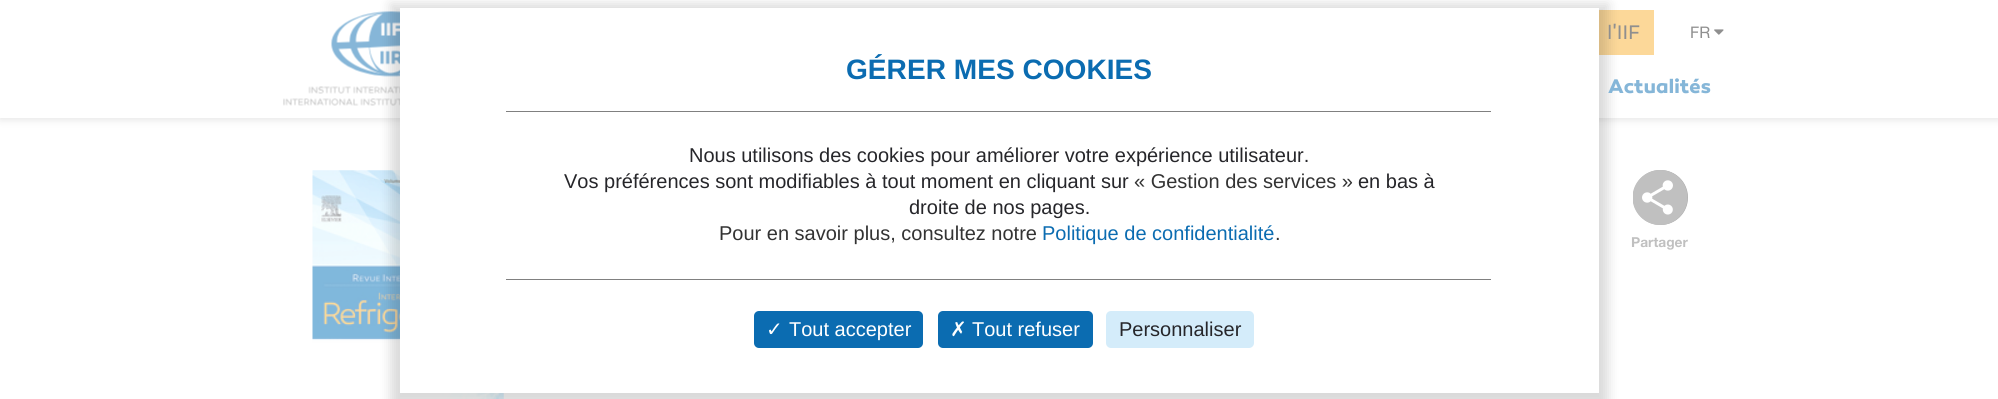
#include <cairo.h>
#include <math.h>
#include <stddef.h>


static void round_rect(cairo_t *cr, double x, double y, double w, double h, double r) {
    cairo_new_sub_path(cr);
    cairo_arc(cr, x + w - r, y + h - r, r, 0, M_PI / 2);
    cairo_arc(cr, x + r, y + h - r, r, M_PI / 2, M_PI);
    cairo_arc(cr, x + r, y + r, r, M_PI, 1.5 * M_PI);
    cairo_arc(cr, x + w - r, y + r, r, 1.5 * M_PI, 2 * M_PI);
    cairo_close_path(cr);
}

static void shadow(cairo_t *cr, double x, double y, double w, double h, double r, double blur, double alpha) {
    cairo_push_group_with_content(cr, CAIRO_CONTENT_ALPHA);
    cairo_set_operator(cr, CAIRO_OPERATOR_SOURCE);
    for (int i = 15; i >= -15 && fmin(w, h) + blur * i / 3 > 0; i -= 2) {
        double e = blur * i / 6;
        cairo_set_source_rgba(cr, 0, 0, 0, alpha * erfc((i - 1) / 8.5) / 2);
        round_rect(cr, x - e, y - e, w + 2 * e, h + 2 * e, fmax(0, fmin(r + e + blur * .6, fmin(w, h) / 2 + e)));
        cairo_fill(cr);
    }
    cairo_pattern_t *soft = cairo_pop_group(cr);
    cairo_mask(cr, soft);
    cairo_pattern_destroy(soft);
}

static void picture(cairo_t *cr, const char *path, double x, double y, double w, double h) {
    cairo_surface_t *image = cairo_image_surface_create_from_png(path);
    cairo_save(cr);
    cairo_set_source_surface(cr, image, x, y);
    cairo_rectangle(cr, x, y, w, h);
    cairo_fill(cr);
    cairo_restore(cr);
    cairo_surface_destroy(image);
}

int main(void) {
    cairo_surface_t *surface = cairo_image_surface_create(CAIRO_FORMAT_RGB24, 1998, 399);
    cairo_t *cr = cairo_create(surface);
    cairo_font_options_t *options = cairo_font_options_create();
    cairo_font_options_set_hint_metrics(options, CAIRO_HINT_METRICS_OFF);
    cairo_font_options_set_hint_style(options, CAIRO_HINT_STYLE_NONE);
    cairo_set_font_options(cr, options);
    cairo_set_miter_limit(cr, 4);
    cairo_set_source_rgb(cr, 1, 1, 1);
    cairo_paint(cr);
    cairo_set_source_rgb(cr, 0.502, 0.502, 0.502);
    shadow(cr, 0, 3, 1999, 117, 0, 4, 0.2);
    cairo_set_source_rgb(cr, 1, 1, 1);
    cairo_rectangle(cr, 0, 0, 1998, 118);
    cairo_fill(cr);
    picture(cr, "img1.png", 283, 11, 117, 95);
    cairo_set_source_rgb(cr, 0.988, 0.847, 0.6);
    cairo_rectangle(cr, 1599, 10, 55, 45);
    cairo_fill(cr);
    picture(cr, "img3.png", 312, 170, 192, 229);
    cairo_set_source_rgb(cr, 0, 0, 0);
    shadow(cr, 391, 4, 1217, 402, 0, 6, 0.15);
    cairo_set_source_rgb(cr, 1, 1, 1);
    cairo_rectangle(cr, 400, 8, 1199, 385);
    cairo_fill(cr);
    cairo_select_font_face(cr, "Liberation Sans", CAIRO_FONT_SLANT_NORMAL, CAIRO_FONT_WEIGHT_BOLD);
    cairo_set_font_size(cr, 28.1);
    cairo_set_source_rgb(cr, 0.043, 0.424, 0.694);
    cairo_move_to(cr, 846, 79);
    cairo_show_text(cr, "GÉRER MES COOKIES");
    cairo_set_source_rgb(cr, 0.502, 0.502, 0.502);
    cairo_rectangle(cr, 506, 111, 985, 1);
    cairo_fill(cr);
    cairo_rectangle(cr, 506, 279, 985, 1);
    cairo_fill(cr);
    cairo_select_font_face(cr, "Liberation Sans", CAIRO_FONT_SLANT_NORMAL, CAIRO_FONT_WEIGHT_NORMAL);
    cairo_set_font_size(cr, 20);
    cairo_set_source_rgb(cr, 0.149, 0.149, 0.165);
    cairo_move_to(cr, 689, 162);
    cairo_show_text(cr, "Nous utilisons des cookies pour améliorer votre expérience utilisateur.");
    cairo_move_to(cr, 564, 188);
    cairo_show_text(cr, "Vos préférences sont modifiables à tout moment en cliquant sur");
    cairo_set_source_rgb(cr, 0.2, 0.2, 0.2);
    cairo_move_to(cr, 1134, 188);
    cairo_show_text(cr, "« Gestion des services »");
    cairo_set_source_rgb(cr, 0.149, 0.149, 0.165);
    cairo_move_to(cr, 1358, 188);
    cairo_show_text(cr, "en bas à");
    cairo_move_to(cr, 909, 214);
    cairo_show_text(cr, "droite de nos pages.");
    cairo_set_source_rgb(cr, 0.2, 0.2, 0.2);
    cairo_move_to(cr, 719, 240);
    cairo_show_text(cr, "Pour en savoir plus, consultez notre");
    cairo_set_source_rgb(cr, 0.043, 0.424, 0.694);
    cairo_move_to(cr, 1042, 240);
    cairo_show_text(cr, "Politique de confidentialité");
    cairo_set_source_rgb(cr, 0.2, 0.2, 0.2);
    cairo_move_to(cr, 1275, 240);
    cairo_show_text(cr, ".");
    cairo_set_source_rgb(cr, 0.043, 0.424, 0.694);
    round_rect(cr, 754, 311, 169, 37, 5);
    cairo_fill(cr);
    cairo_select_font_face(cr, "DejaVu Sans", CAIRO_FONT_SLANT_NORMAL, CAIRO_FONT_WEIGHT_NORMAL);
    cairo_set_source_rgb(cr, 1, 1, 1);
    cairo_move_to(cr, 766, 336);
    cairo_show_text(cr, "✓");
    cairo_select_font_face(cr, "Liberation Sans", CAIRO_FONT_SLANT_NORMAL, CAIRO_FONT_WEIGHT_NORMAL);
    cairo_move_to(cr, 789, 336);
    cairo_show_text(cr, "Tout accepter");
    cairo_set_source_rgb(cr, 0.043, 0.424, 0.694);
    round_rect(cr, 938, 311, 155, 37, 5);
    cairo_fill(cr);
    cairo_select_font_face(cr, "DejaVu Sans", CAIRO_FONT_SLANT_NORMAL, CAIRO_FONT_WEIGHT_NORMAL);
    cairo_set_source_rgb(cr, 1, 1, 1);
    cairo_move_to(cr, 950, 336);
    cairo_show_text(cr, "✗");
    cairo_select_font_face(cr, "Liberation Sans", CAIRO_FONT_SLANT_NORMAL, CAIRO_FONT_WEIGHT_NORMAL);
    cairo_move_to(cr, 972, 336);
    cairo_show_text(cr, "Tout refuser");
    cairo_set_source_rgb(cr, 0.831, 0.922, 0.98);
    round_rect(cr, 1106, 311, 148, 37, 5);
    cairo_fill(cr);
    cairo_set_source_rgb(cr, 0.149, 0.149, 0.165);
    cairo_move_to(cr, 1119, 336);
    cairo_show_text(cr, "Personnaliser");
    cairo_select_font_face(cr, "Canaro", CAIRO_FONT_SLANT_NORMAL, CAIRO_FONT_WEIGHT_NORMAL);
    cairo_set_source_rgb(cr, 0.561, 0.561, 0.561);
    cairo_move_to(cr, 1607, 39);
    cairo_show_text(cr, "l'IIF");
    cairo_select_font_face(cr, "Helvetica Neue", CAIRO_FONT_SLANT_NORMAL, CAIRO_FONT_WEIGHT_NORMAL);
    cairo_set_font_size(cr, 16);
    cairo_move_to(cr, 1690, 38);
    cairo_show_text(cr, "FR");
    picture(cr, "img2.png", 1714, 29, 10, 6);
    cairo_select_font_face(cr, "Canaro", CAIRO_FONT_SLANT_NORMAL, CAIRO_FONT_WEIGHT_BOLD);
    cairo_set_font_size(cr, 20);
    cairo_set_source_rgb(cr, 0.522, 0.714, 0.847);
    cairo_move_to(cr, 1608, 93);
    cairo_show_text(cr, "Actualités");
    cairo_set_source_rgb(cr, 0.671, 0.671, 0.671);
    cairo_new_path(cr);
    cairo_arc(cr, 1660.5, 197.5, 27.5, 0, 2 * M_PI);
    cairo_fill(cr);
    picture(cr, "img4.png", 1633, 170, 55, 55);
    cairo_select_font_face(cr, "Helvetica Neue", CAIRO_FONT_SLANT_NORMAL, CAIRO_FONT_WEIGHT_BOLD);
    cairo_set_font_size(cr, 13.75);
    cairo_set_source_rgb(cr, 0.753, 0.753, 0.753);
    cairo_move_to(cr, 1631, 247);
    cairo_show_text(cr, "Partager");
    cairo_surface_write_to_png(surface, "page.png");
    cairo_font_options_destroy(options);
    cairo_destroy(cr);
    cairo_surface_destroy(surface);
    return 0;
}
